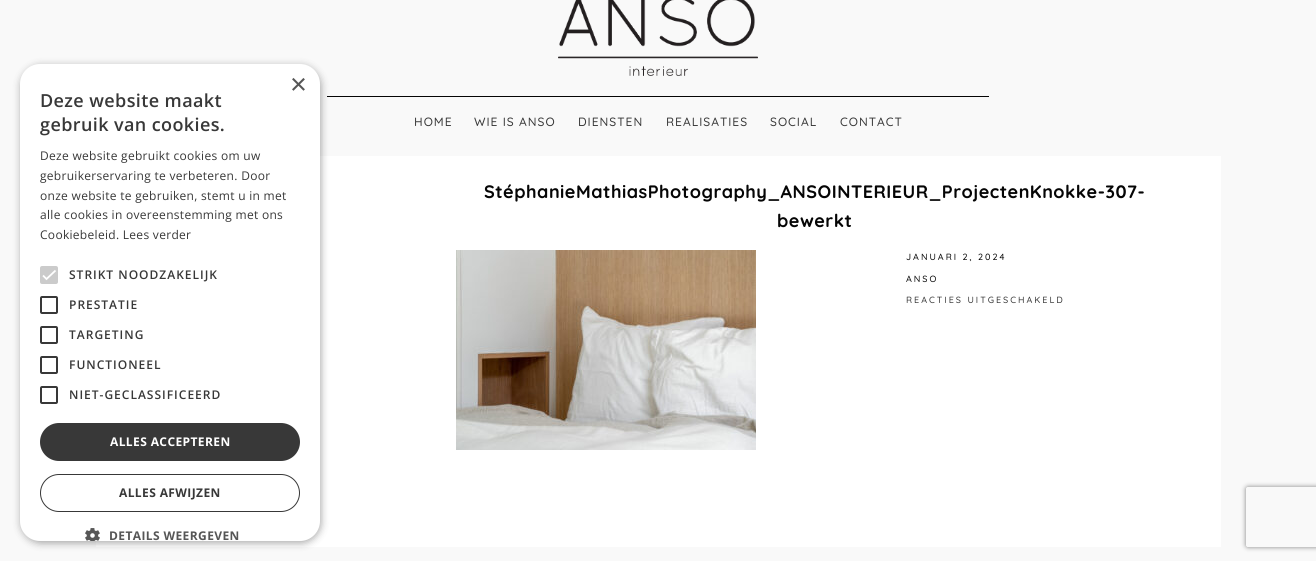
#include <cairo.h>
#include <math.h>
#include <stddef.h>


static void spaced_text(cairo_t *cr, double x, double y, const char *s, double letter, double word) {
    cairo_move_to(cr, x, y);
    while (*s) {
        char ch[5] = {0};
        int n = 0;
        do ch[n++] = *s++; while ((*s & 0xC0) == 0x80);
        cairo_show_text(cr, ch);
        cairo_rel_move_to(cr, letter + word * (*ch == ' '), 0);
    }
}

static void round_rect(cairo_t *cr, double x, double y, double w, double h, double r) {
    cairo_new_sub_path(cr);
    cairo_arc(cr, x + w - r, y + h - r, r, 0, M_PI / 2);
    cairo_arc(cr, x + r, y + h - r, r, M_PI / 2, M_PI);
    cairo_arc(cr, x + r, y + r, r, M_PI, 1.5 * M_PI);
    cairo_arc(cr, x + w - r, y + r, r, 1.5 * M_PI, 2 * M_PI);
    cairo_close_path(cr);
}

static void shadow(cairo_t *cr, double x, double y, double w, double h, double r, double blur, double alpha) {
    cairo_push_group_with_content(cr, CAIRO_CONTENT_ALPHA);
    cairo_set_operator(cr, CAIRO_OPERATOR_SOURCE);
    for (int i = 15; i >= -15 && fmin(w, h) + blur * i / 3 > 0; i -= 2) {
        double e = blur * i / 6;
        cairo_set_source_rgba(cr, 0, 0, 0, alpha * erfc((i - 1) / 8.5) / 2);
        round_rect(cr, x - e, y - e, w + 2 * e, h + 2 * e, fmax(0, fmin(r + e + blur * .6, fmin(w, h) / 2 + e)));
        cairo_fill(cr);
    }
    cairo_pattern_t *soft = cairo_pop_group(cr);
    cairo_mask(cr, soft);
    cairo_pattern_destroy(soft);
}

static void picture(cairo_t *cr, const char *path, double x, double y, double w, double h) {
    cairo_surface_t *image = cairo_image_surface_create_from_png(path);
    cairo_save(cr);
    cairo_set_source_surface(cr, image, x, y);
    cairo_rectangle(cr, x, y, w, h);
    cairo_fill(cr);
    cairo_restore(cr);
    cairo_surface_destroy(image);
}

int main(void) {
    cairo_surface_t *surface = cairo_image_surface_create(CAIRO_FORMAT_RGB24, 1316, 561);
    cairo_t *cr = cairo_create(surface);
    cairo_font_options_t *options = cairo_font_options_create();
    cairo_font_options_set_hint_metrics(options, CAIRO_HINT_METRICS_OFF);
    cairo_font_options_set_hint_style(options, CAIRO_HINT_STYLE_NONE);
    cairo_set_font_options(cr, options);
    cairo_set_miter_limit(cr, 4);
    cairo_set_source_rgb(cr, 0.976, 0.976, 0.976);
    cairo_paint(cr);
    cairo_set_source_rgb(cr, 0.02, 0.02, 0.02);
    cairo_rectangle(cr, 327, 96, 662, 1);
    cairo_fill(cr);
    cairo_set_source_rgb(cr, 1, 1, 1);
    cairo_rectangle(cr, 96, 156, 1125, 391);
    cairo_fill(cr);
    cairo_set_source_rgb(cr, 0, 0, 0);
    shadow(cr, 21, 66, 300, 477, 20, 4, 0.35);
    cairo_set_source_rgb(cr, 1, 1, 1);
    round_rect(cr, 20, 64, 300, 477, 20);
    cairo_fill(cr);
    cairo_select_font_face(cr, "Liberation Sans", CAIRO_FONT_SLANT_NORMAL, CAIRO_FONT_WEIGHT_NORMAL);
    cairo_set_font_size(cr, 29);
    cairo_set_source_rgb(cr, 0.337, 0.337, 0.337);
    cairo_move_to(cr, 290, 94);
    cairo_show_text(cr, "×");
    cairo_select_font_face(cr, "Open Sans SemiBold", CAIRO_FONT_SLANT_NORMAL, CAIRO_FONT_WEIGHT_NORMAL);
    cairo_set_font_size(cr, 18);
    cairo_set_source_rgb(cr, 0.22, 0.22, 0.22);
    spaced_text(cr, 40, 107, "Deze website maakt", 0.4, 0);
    spaced_text(cr, 40, 131, "gebruik van cookies.", 0.4, 0);
    cairo_select_font_face(cr, "Open Sans", CAIRO_FONT_SLANT_NORMAL, CAIRO_FONT_WEIGHT_NORMAL);
    cairo_set_font_size(cr, 12);
    spaced_text(cr, 40, 160, "Deze website gebruikt cookies om uw", 0.3, 0);
    spaced_text(cr, 40, 180, "gebruikerservaring te verbeteren. Door", 0.3, 0);
    spaced_text(cr, 40, 200, "onze website te gebruiken, stemt u in met", 0.3, 0);
    spaced_text(cr, 40, 219, "alle cookies in overeenstemming met ons", 0.3, 0);
    spaced_text(cr, 40, 239, "Cookiebeleid. Lees verder", 0.3, 0);
    cairo_set_source_rgb(cr, 0.796, 0.796, 0.796);
    round_rect(cr, 40, 266, 18, 18, 2);
    cairo_fill(cr);
    cairo_new_path(cr);
    cairo_move_to(cr, 43, 275.5);
    cairo_line_to(cr, 46.5, 279);
    cairo_line_to(cr, 55.5, 270.5);
    cairo_set_source_rgb(cr, 1, 1, 1);
    cairo_set_line_width(cr, 1.8);
    cairo_stroke(cr);
    cairo_select_font_face(cr, "Open Sans SemiBold", CAIRO_FONT_SLANT_NORMAL, CAIRO_FONT_WEIGHT_NORMAL);
    cairo_set_source_rgb(cr, 0.22, 0.22, 0.22);
    spaced_text(cr, 69, 279, "STRIKT NOODZAKELIJK", 1, 0);
    round_rect(cr, 41, 297, 16, 16, 1);
    cairo_set_line_width(cr, 2);
    cairo_stroke(cr);
    spaced_text(cr, 69, 309, "PRESTATIE", 1, 0);
    round_rect(cr, 41, 327, 16, 16, 1);
    cairo_stroke(cr);
    spaced_text(cr, 69, 339, "TARGETING", 1, 0);
    round_rect(cr, 41, 357, 16, 16, 1);
    cairo_stroke(cr);
    spaced_text(cr, 69, 369, "FUNCTIONEEL", 1, 0);
    round_rect(cr, 41, 387, 16, 16, 1);
    cairo_stroke(cr);
    spaced_text(cr, 69, 399, "NIET-GECLASSIFICEERD", 1, 0);
    round_rect(cr, 40, 423, 260, 38, 19);
    cairo_fill(cr);
    cairo_select_font_face(cr, "Open Sans", CAIRO_FONT_SLANT_NORMAL, CAIRO_FONT_WEIGHT_BOLD);
    cairo_set_source_rgb(cr, 1, 1, 1);
    spaced_text(cr, 110, 446, "ALLES ACCEPTEREN", 0.4, 0);
    round_rect(cr, 40.5, 474.5, 259, 37, 18.5);
    cairo_set_source_rgb(cr, 0.22, 0.22, 0.22);
    cairo_set_line_width(cr, 1);
    cairo_stroke(cr);
    spaced_text(cr, 119, 497, "ALLES AFWIJZEN", 0.4, 0);
    picture(cr, "img1.png", 85, 528, 15, 13);
    cairo_set_source_rgb(cr, 0.337, 0.337, 0.337);
    spaced_text(cr, 109, 540, "DETAILS WEERGEVEN", 0.4, 0);
    picture(cr, "img2.png", 558, 0, 200, 76);
    cairo_select_font_face(cr, "Quicksand Medium", CAIRO_FONT_SLANT_NORMAL, CAIRO_FONT_WEIGHT_NORMAL);
    cairo_set_source_rgb(cr, 0.22, 0.22, 0.22);
    spaced_text(cr, 414, 126, "HOME", 1, 0);
    spaced_text(cr, 474, 126, "WIE IS ANSO", 1, 0);
    spaced_text(cr, 578, 126, "DIENSTEN", 1, 0);
    spaced_text(cr, 666, 126, "REALISATIES", 1, 0);
    spaced_text(cr, 770, 126, "SOCIAL", 1, 0);
    spaced_text(cr, 840, 126, "CONTACT", 1, 0);
    cairo_select_font_face(cr, "Quicksand", CAIRO_FONT_SLANT_NORMAL, CAIRO_FONT_WEIGHT_BOLD);
    cairo_set_font_size(cr, 18);
    cairo_set_source_rgb(cr, 0.02, 0.02, 0.02);
    spaced_text(cr, 484, 198, "StéphanieMathiasPhotography_ANSOINTERIEUR_ProjectenKnokke-307-", 0.5, 0);
    spaced_text(cr, 777, 227, "bewerkt", 0.5, 0);
    picture(cr, "img3.png", 456, 250, 300, 200);
    cairo_select_font_face(cr, "Quicksand Medium", CAIRO_FONT_SLANT_NORMAL, CAIRO_FONT_WEIGHT_NORMAL);
    cairo_set_font_size(cr, 9);
    spaced_text(cr, 906, 260, "JANUARI 2, 2024", 2, 0);
    spaced_text(cr, 906, 282, "ANSO", 2, 0);
    cairo_set_source_rgb(cr, 0.22, 0.22, 0.22);
    spaced_text(cr, 906, 303, "REACTIES UITGESCHAKELD", 2, 0);
    cairo_save(cr);
    cairo_set_fill_rule(cr, CAIRO_FILL_RULE_EVEN_ODD);
    cairo_new_path(cr);
    cairo_move_to(cr, 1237, 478);
    cairo_line_to(cr, 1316, 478);
    cairo_line_to(cr, 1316, 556);
    cairo_line_to(cr, 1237, 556);
    cairo_close_path(cr);
    cairo_move_to(cr, 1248, 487);
    cairo_line_to(cr, 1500, 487);
    cairo_curve_to(cr, 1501, 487, 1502, 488, 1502, 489);
    cairo_line_to(cr, 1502, 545);
    cairo_curve_to(cr, 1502, 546, 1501, 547, 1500, 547);
    cairo_line_to(cr, 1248, 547);
    cairo_curve_to(cr, 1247, 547, 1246, 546, 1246, 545);
    cairo_line_to(cr, 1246, 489);
    cairo_curve_to(cr, 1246, 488, 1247, 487, 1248, 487);
    cairo_close_path(cr);
    cairo_clip(cr);
    cairo_set_source_rgb(cr, 0.502, 0.502, 0.502);
    shadow(cr, 1246, 487, 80, 60, 2, 2.5, 1);
    cairo_restore(cr);
    cairo_surface_write_to_png(surface, "page.png");
    cairo_font_options_destroy(options);
    cairo_destroy(cr);
    cairo_surface_destroy(surface);
    return 0;
}
